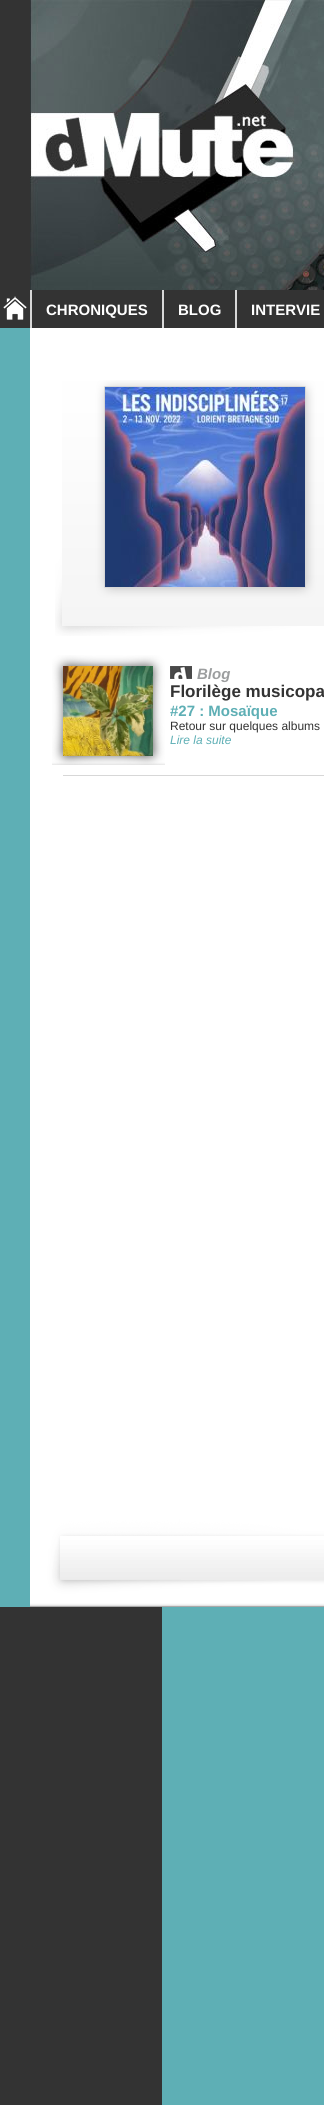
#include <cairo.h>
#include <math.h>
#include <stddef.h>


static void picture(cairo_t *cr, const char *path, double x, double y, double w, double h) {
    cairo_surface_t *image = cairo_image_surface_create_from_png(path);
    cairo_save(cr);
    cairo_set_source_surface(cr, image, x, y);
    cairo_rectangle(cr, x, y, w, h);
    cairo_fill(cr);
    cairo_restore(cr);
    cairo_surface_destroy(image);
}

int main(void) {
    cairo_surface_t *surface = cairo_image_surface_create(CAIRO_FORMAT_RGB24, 324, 2105);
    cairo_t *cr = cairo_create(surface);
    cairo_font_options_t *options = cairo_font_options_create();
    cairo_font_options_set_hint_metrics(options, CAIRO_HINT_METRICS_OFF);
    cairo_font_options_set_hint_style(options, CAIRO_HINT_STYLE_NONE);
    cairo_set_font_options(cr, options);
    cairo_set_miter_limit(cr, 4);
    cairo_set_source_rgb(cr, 0.2, 0.2, 0.2);
    cairo_paint(cr);
    cairo_set_source_rgb(cr, 0.369, 0.686, 0.71);
    cairo_rectangle(cr, 162, 1607, 162, 498);
    cairo_fill(cr);
    picture(cr, "img1.png", 3, 296, 24, 24);
    picture(cr, "img2.png", 30, 0, 294, 290);
    cairo_set_source_rgb(cr, 0.847, 0.847, 0.847);
    cairo_rectangle(cr, 30, 290, 207, 38);
    cairo_fill(cr);
    cairo_set_source_rgb(cr, 0.2, 0.2, 0.2);
    cairo_rectangle(cr, 32, 290, 130, 38);
    cairo_fill(cr);
    cairo_select_font_face(cr, "Liberation Sans", CAIRO_FONT_SLANT_NORMAL, CAIRO_FONT_WEIGHT_BOLD);
    cairo_set_font_size(cr, 15);
    cairo_set_source_rgb(cr, 1, 1, 1);
    cairo_move_to(cr, 46, 315);
    cairo_show_text(cr, "CHRONIQUES");
    cairo_set_source_rgb(cr, 0.2, 0.2, 0.2);
    cairo_rectangle(cr, 164, 290, 71, 38);
    cairo_fill(cr);
    cairo_set_source_rgb(cr, 1, 1, 1);
    cairo_move_to(cr, 178, 315);
    cairo_show_text(cr, "BLOG");
    cairo_move_to(cr, 251, 315);
    cairo_show_text(cr, "INTERVIE");
    cairo_set_source_rgb(cr, 0.369, 0.686, 0.71);
    cairo_rectangle(cr, 0, 328, 30, 1279);
    cairo_fill(cr);
    cairo_set_source_rgb(cr, 1, 1, 1);
    cairo_rectangle(cr, 30, 328, 294, 1186);
    cairo_fill(cr);
    picture(cr, "img3.png", 55, 380, 269, 256);
    picture(cr, "img4.png", 105, 387, 200, 200);
    picture(cr, "img5.png", 52, 655, 113, 110);
    picture(cr, "img6.png", 63, 666, 90, 90);
    picture(cr, "img7.png", 170, 666, 22, 13);
    cairo_select_font_face(cr, "Liberation Sans", CAIRO_FONT_SLANT_ITALIC, CAIRO_FONT_WEIGHT_BOLD);
    cairo_set_source_rgb(cr, 0.612, 0.62, 0.624);
    cairo_move_to(cr, 197, 679);
    cairo_show_text(cr, "Blog");
    cairo_select_font_face(cr, "Liberation Sans", CAIRO_FONT_SLANT_NORMAL, CAIRO_FONT_WEIGHT_BOLD);
    cairo_set_font_size(cr, 17);
    cairo_set_source_rgb(cr, 0.2, 0.2, 0.2);
    cairo_move_to(cr, 170, 697);
    cairo_show_text(cr, "Florilège musicopa");
    cairo_set_font_size(cr, 15);
    cairo_set_source_rgb(cr, 0.369, 0.686, 0.71);
    cairo_move_to(cr, 170, 716);
    cairo_show_text(cr, "#27 : Mosaïque");
    cairo_select_font_face(cr, "Liberation Sans", CAIRO_FONT_SLANT_NORMAL, CAIRO_FONT_WEIGHT_NORMAL);
    cairo_set_font_size(cr, 12);
    cairo_set_source_rgb(cr, 0.2, 0.2, 0.2);
    cairo_move_to(cr, 170, 730);
    cairo_show_text(cr, "Retour sur quelques albums");
    cairo_select_font_face(cr, "Liberation Sans", CAIRO_FONT_SLANT_ITALIC, CAIRO_FONT_WEIGHT_NORMAL);
    cairo_set_source_rgb(cr, 0.369, 0.686, 0.71);
    cairo_move_to(cr, 170, 744);
    cairo_show_text(cr, "Lire la suite");
    cairo_set_source_rgb(cr, 0.843, 0.843, 0.843);
    cairo_rectangle(cr, 63, 775, 261, 1);
    cairo_fill(cr);
    picture(cr, "img8.png", 30, 1514, 294, 93);
    cairo_surface_write_to_png(surface, "page.png");
    cairo_font_options_destroy(options);
    cairo_destroy(cr);
    cairo_surface_destroy(surface);
    return 0;
}
